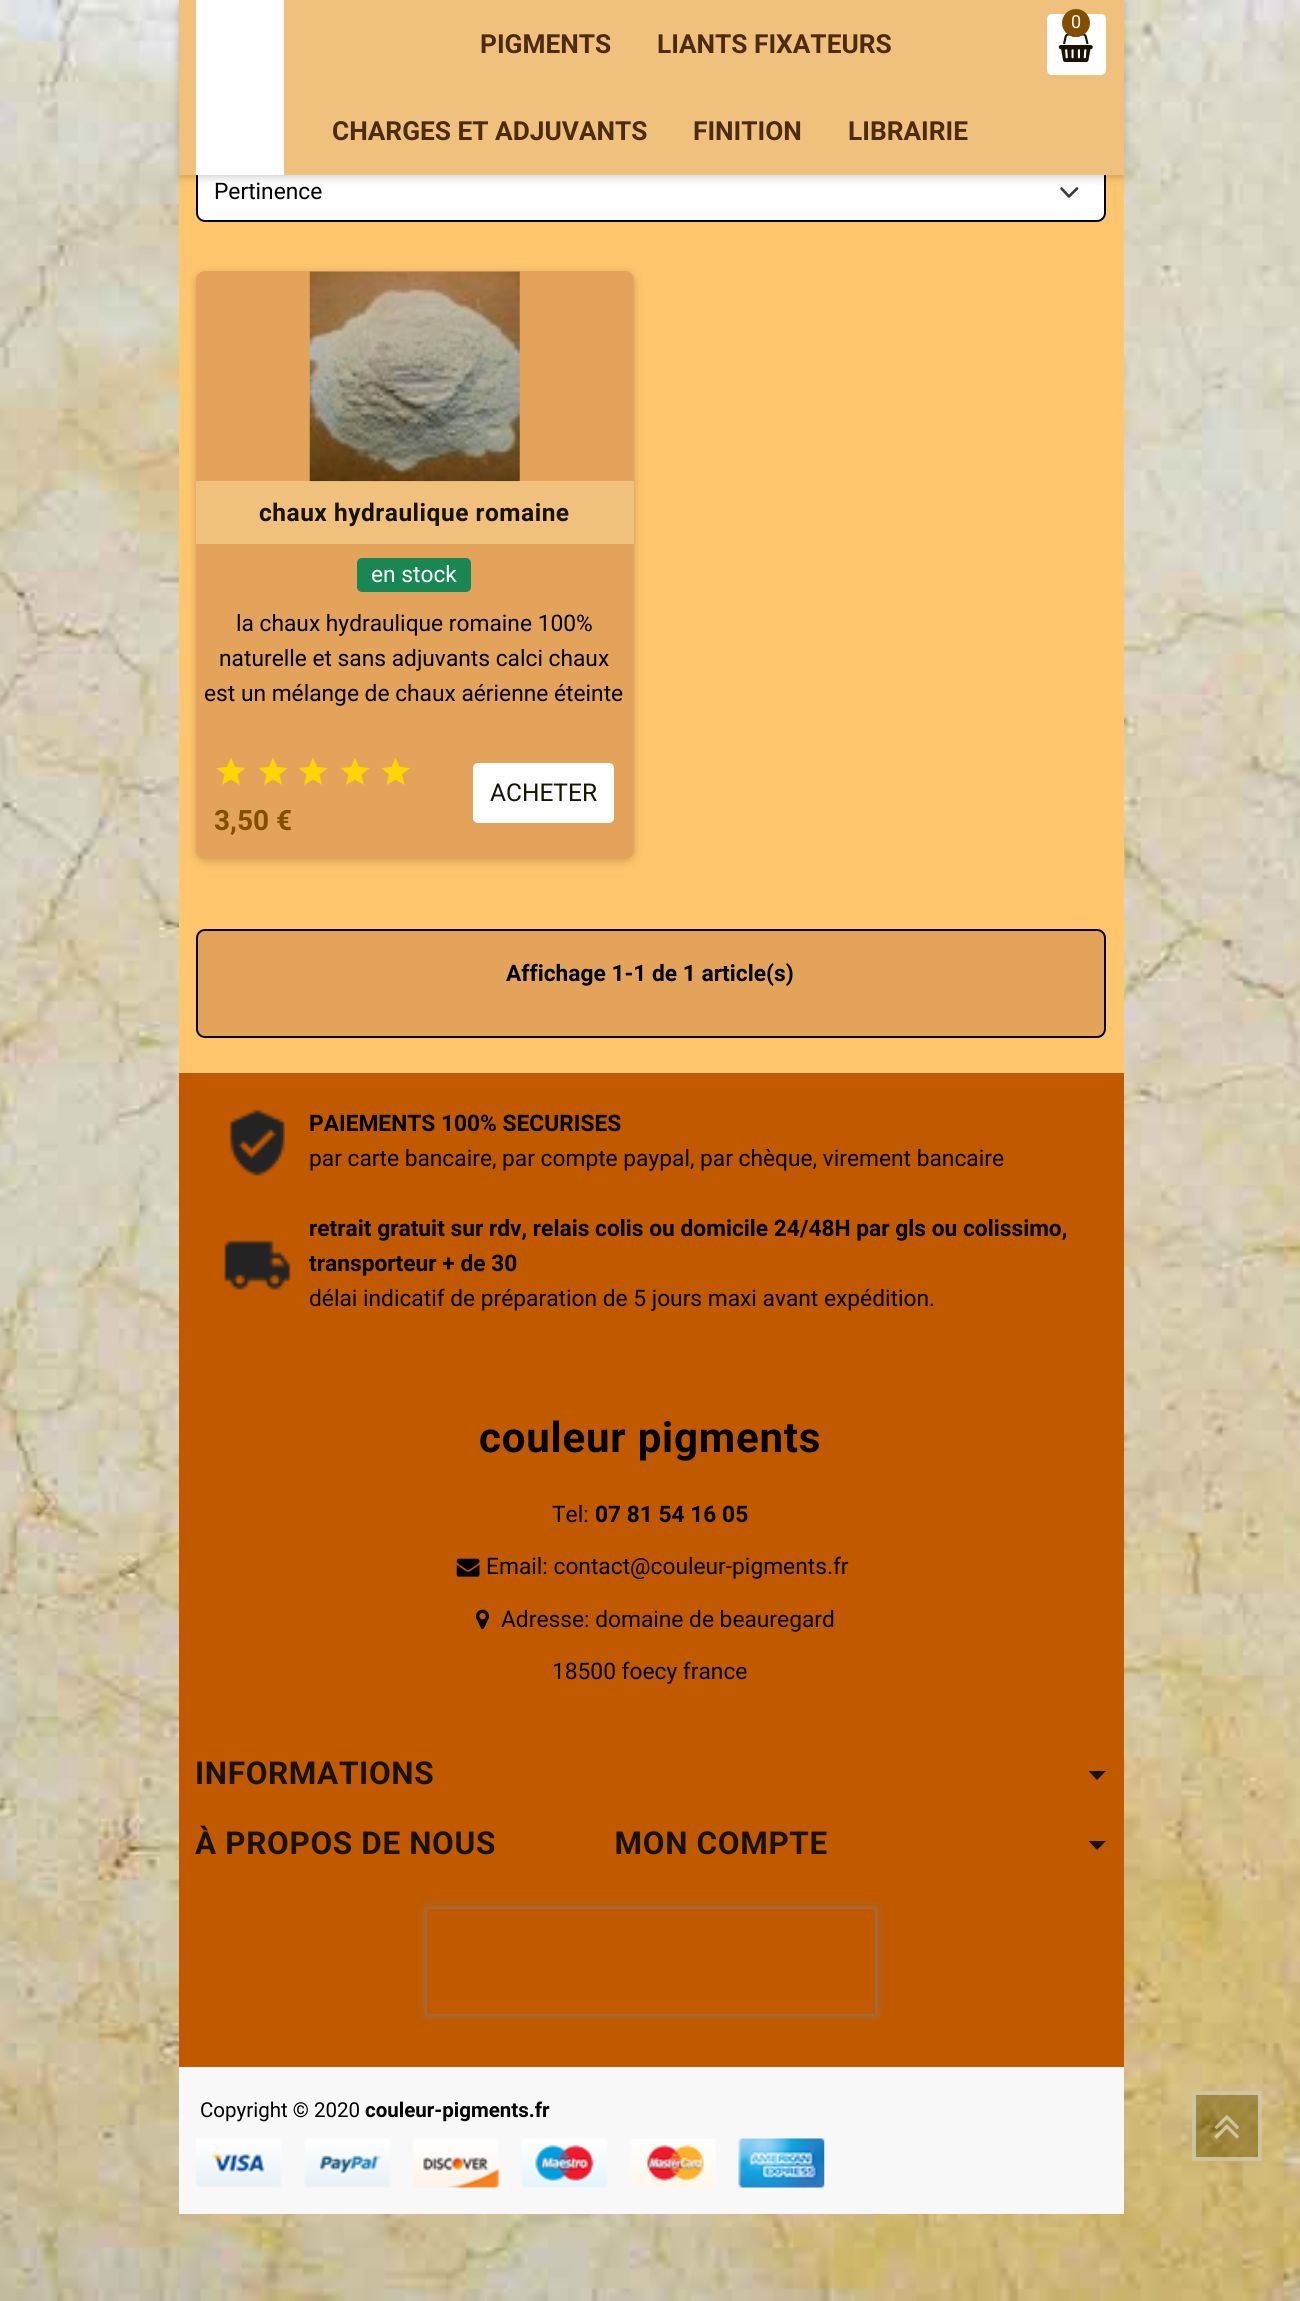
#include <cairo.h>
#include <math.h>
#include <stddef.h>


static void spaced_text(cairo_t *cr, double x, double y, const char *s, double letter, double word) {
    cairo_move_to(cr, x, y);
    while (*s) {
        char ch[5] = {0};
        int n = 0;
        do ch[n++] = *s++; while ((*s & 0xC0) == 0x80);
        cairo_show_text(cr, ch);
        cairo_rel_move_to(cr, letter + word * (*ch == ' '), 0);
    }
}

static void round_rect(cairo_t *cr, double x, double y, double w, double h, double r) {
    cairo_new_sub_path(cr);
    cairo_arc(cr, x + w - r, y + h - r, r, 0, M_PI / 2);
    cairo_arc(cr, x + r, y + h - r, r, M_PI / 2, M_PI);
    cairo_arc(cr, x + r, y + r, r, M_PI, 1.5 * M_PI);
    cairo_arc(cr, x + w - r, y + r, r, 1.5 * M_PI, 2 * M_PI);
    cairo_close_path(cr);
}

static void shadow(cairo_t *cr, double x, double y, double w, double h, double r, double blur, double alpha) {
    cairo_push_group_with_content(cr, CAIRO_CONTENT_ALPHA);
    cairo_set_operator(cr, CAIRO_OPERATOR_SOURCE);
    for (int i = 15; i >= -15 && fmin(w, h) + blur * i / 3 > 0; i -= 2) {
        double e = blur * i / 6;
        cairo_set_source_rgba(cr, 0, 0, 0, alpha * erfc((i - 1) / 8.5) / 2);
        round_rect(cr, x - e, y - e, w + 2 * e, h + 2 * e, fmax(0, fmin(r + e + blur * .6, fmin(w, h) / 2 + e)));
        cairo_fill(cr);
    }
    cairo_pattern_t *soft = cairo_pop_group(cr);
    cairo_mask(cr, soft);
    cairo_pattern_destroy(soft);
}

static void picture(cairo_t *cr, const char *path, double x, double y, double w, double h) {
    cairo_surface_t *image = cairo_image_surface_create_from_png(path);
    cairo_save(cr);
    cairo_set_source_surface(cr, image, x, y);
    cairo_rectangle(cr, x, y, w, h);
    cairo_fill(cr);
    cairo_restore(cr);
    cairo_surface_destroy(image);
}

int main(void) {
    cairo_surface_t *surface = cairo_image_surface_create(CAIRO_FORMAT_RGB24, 1300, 2301);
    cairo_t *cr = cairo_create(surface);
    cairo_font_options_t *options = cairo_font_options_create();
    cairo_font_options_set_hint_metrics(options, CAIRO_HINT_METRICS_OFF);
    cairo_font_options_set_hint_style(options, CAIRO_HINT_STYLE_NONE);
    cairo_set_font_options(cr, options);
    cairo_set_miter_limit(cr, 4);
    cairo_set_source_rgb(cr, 1, 1, 1);
    cairo_paint(cr);
    picture(cr, "img1.png", 0, 0, 1300, 2301);
    cairo_set_source_rgb(cr, 1, 0.776, 0.427);
    cairo_rectangle(cr, 179, 175, 945, 898);
    cairo_fill(cr);
    cairo_set_source_rgb(cr, 1, 1, 1);
    round_rect(cr, 196, 163, 910, 59, 9);
    cairo_fill(cr);
    cairo_new_path(cr);
    cairo_move_to(cr, 1061.5, 188.5);
    cairo_line_to(cr, 1069, 196.5);
    cairo_line_to(cr, 1077, 188.5);
    cairo_set_source_rgb(cr, 0.204, 0.227, 0.251);
    cairo_set_line_width(cr, 2.6);
    cairo_set_line_cap(cr, CAIRO_LINE_CAP_ROUND);
    cairo_set_line_join(cr, CAIRO_LINE_JOIN_ROUND);
    cairo_stroke(cr);
    round_rect(cr, 197, 164, 908, 57, 8);
    cairo_set_source_rgb(cr, 0, 0, 0);
    cairo_set_line_width(cr, 2);
    cairo_set_line_cap(cr, CAIRO_LINE_CAP_BUTT);
    cairo_set_line_join(cr, CAIRO_LINE_JOIN_MITER);
    cairo_stroke(cr);
    cairo_set_source_rgb(cr, 0, 0, 0);
    shadow(cr, 179, 2, 945, 175, 0, 4.5, 0.2);
    cairo_set_source_rgb(cr, 0.941, 0.753, 0.49);
    cairo_rectangle(cr, 179, 0, 945, 175);
    cairo_fill(cr);
    cairo_set_source_rgb(cr, 1, 1, 1);
    cairo_rectangle(cr, 196, 0, 88, 175);
    cairo_fill(cr);
    round_rect(cr, 1047, 14, 59, 61, 5);
    cairo_fill(cr);
    picture(cr, "img2.png", 1058, 33, 35, 29);
    cairo_set_source_rgb(cr, 0.514, 0.306, 0);
    cairo_arc(cr, 1076, 23, 14, 0, 2 * M_PI);
    cairo_fill(cr);
    cairo_select_font_face(cr, "Roboto", CAIRO_FONT_SLANT_NORMAL, CAIRO_FONT_WEIGHT_NORMAL);
    cairo_set_font_size(cr, 18);
    cairo_set_source_rgb(cr, 1, 1, 1);
    cairo_move_to(cr, 1071, 28);
    cairo_show_text(cr, "0");
    cairo_select_font_face(cr, "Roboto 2", CAIRO_FONT_SLANT_NORMAL, CAIRO_FONT_WEIGHT_BOLD);
    cairo_set_font_size(cr, 26.25);
    cairo_set_source_rgb(cr, 0.298, 0.169, 0.067);
    cairo_move_to(cr, 480, 53);
    cairo_show_text(cr, "PIGMENTS");
    cairo_move_to(cr, 657, 53);
    cairo_show_text(cr, "LIANTS FIXATEURS");
    cairo_move_to(cr, 332, 140);
    cairo_show_text(cr, "CHARGES ET ADJUVANTS");
    cairo_move_to(cr, 693, 140);
    cairo_show_text(cr, "FINITION");
    cairo_move_to(cr, 848, 140);
    cairo_show_text(cr, "LIBRAIRIE");
    cairo_select_font_face(cr, "Roboto", CAIRO_FONT_SLANT_NORMAL, CAIRO_FONT_WEIGHT_NORMAL);
    cairo_set_font_size(cr, 22.75);
    cairo_set_source_rgb(cr, 0, 0, 0);
    cairo_move_to(cr, 214, 199);
    cairo_show_text(cr, "Pertinence");
    cairo_set_source_rgb(cr, 0, 0, 0);
    shadow(cr, 196, 273, 438, 588, 9, 4.5, 0.2);
    cairo_set_source_rgb(cr, 0.89, 0.639, 0.357);
    round_rect(cr, 196, 271, 438, 588, 9);
    cairo_fill(cr);
    cairo_set_source_rgb(cr, 0.941, 0.753, 0.49);
    cairo_rectangle(cr, 196, 481, 438, 63);
    cairo_fill(cr);
    picture(cr, "img3.png", 309, 271, 211, 211);
    cairo_select_font_face(cr, "Roboto", CAIRO_FONT_SLANT_NORMAL, CAIRO_FONT_WEIGHT_BOLD);
    cairo_set_font_size(cr, 24.5);
    cairo_set_source_rgb(cr, 0.094, 0.071, 0);
    spaced_text(cr, 259, 521, "chaux hydraulique romaine", 0.5, 0);
    cairo_set_source_rgb(cr, 0.098, 0.529, 0.329);
    round_rect(cr, 357, 558, 114, 34, 5);
    cairo_fill(cr);
    cairo_select_font_face(cr, "Roboto", CAIRO_FONT_SLANT_NORMAL, CAIRO_FONT_WEIGHT_NORMAL);
    cairo_set_font_size(cr, 22.75);
    cairo_set_source_rgb(cr, 1, 1, 1);
    cairo_move_to(cr, 371, 582);
    cairo_show_text(cr, "en stock");
    cairo_set_source_rgb(cr, 0, 0, 0);
    cairo_move_to(cr, 236, 631);
    cairo_show_text(cr, "la chaux hydraulique romaine 100%");
    cairo_move_to(cr, 219, 666);
    cairo_show_text(cr, "naturelle et sans adjuvants calci chaux");
    cairo_move_to(cr, 204, 701);
    cairo_show_text(cr, "est un mélange de chaux aérienne éteinte");
    cairo_set_source_rgb(cr, 1, 1, 1);
    round_rect(cr, 473, 763, 141, 60, 5);
    cairo_fill(cr);
    cairo_set_font_size(cr, 24.5);
    cairo_set_source_rgb(cr, 0.094, 0.071, 0);
    cairo_move_to(cr, 490, 801);
    cairo_show_text(cr, "ACHETER");
    cairo_set_source_rgb(cr, 1, 0.843, 0);
    cairo_new_path(cr);
    cairo_move_to(cr, 231, 779.5);
    cairo_line_to(cr, 222, 785);
    cairo_line_to(cr, 224.5, 774.5);
    cairo_line_to(cr, 216.5, 768);
    cairo_line_to(cr, 227, 767);
    cairo_line_to(cr, 231, 757.5);
    cairo_line_to(cr, 235, 767);
    cairo_line_to(cr, 245.5, 768);
    cairo_line_to(cr, 237.5, 774.5);
    cairo_line_to(cr, 240, 785);
    cairo_close_path(cr);
    cairo_fill(cr);
    cairo_new_path(cr);
    cairo_move_to(cr, 273, 779.5);
    cairo_line_to(cr, 264, 785);
    cairo_line_to(cr, 266.5, 774.5);
    cairo_line_to(cr, 258.5, 768);
    cairo_line_to(cr, 269, 767);
    cairo_line_to(cr, 273, 757.5);
    cairo_line_to(cr, 277, 767);
    cairo_line_to(cr, 287.5, 768);
    cairo_line_to(cr, 279.5, 774.5);
    cairo_line_to(cr, 282, 785);
    cairo_close_path(cr);
    cairo_fill(cr);
    cairo_new_path(cr);
    cairo_move_to(cr, 313, 779.5);
    cairo_line_to(cr, 304, 785);
    cairo_line_to(cr, 306.5, 774.5);
    cairo_line_to(cr, 298.5, 768);
    cairo_line_to(cr, 309, 767);
    cairo_line_to(cr, 313, 757.5);
    cairo_line_to(cr, 317, 767);
    cairo_line_to(cr, 327.5, 768);
    cairo_line_to(cr, 319.5, 774.5);
    cairo_line_to(cr, 322, 785);
    cairo_close_path(cr);
    cairo_fill(cr);
    cairo_new_path(cr);
    cairo_move_to(cr, 355, 779.5);
    cairo_line_to(cr, 346, 785);
    cairo_line_to(cr, 348.5, 774.5);
    cairo_line_to(cr, 340.5, 768);
    cairo_line_to(cr, 351, 767);
    cairo_line_to(cr, 355, 757.5);
    cairo_line_to(cr, 359, 767);
    cairo_line_to(cr, 369.5, 768);
    cairo_line_to(cr, 361.5, 774.5);
    cairo_line_to(cr, 364, 785);
    cairo_close_path(cr);
    cairo_fill(cr);
    cairo_new_path(cr);
    cairo_move_to(cr, 395.5, 779.5);
    cairo_line_to(cr, 386.5, 785);
    cairo_line_to(cr, 389, 774.5);
    cairo_line_to(cr, 381, 768);
    cairo_line_to(cr, 391.5, 767);
    cairo_line_to(cr, 395.5, 757.5);
    cairo_line_to(cr, 399.5, 767);
    cairo_line_to(cr, 410, 768);
    cairo_line_to(cr, 402, 774.5);
    cairo_line_to(cr, 404.5, 785);
    cairo_close_path(cr);
    cairo_fill(cr);
    cairo_select_font_face(cr, "Roboto", CAIRO_FONT_SLANT_NORMAL, CAIRO_FONT_WEIGHT_BOLD);
    cairo_set_font_size(cr, 28);
    cairo_set_source_rgb(cr, 0.514, 0.306, 0);
    cairo_move_to(cr, 214, 830);
    cairo_show_text(cr, "3,50 €");
    cairo_set_source_rgb(cr, 0.89, 0.639, 0.357);
    round_rect(cr, 197, 930, 908, 107, 8);
    cairo_fill_preserve(cr);
    cairo_set_source_rgb(cr, 0, 0, 0);
    cairo_stroke(cr);
    cairo_set_font_size(cr, 22.75);
    cairo_move_to(cr, 506, 981);
    cairo_show_text(cr, "Affichage 1-1 de 1 article(s)");
    cairo_set_source_rgb(cr, 0.753, 0.349, 0);
    cairo_rectangle(cr, 179, 1073, 945, 994);
    cairo_fill(cr);
    picture(cr, "img4.png", 229, 1109, 56, 67);
    cairo_set_source_rgb(cr, 0, 0, 0);
    cairo_move_to(cr, 309, 1131);
    cairo_show_text(cr, "PAIEMENTS 100% SECURISES");
    cairo_select_font_face(cr, "Roboto", CAIRO_FONT_SLANT_NORMAL, CAIRO_FONT_WEIGHT_NORMAL);
    cairo_move_to(cr, 309, 1166);
    cairo_show_text(cr, "par carte bancaire, par compte paypal, par chèque, virement bancaire");
    picture(cr, "img5.png", 224, 1240, 67, 50);
    cairo_select_font_face(cr, "Roboto", CAIRO_FONT_SLANT_NORMAL, CAIRO_FONT_WEIGHT_BOLD);
    cairo_move_to(cr, 309, 1236);
    cairo_show_text(cr, "retrait gratuit sur rdv, relais colis ou domicile 24/48H par gls ou colissimo,");
    cairo_move_to(cr, 309, 1271);
    cairo_show_text(cr, "transporteur + de 30");
    cairo_select_font_face(cr, "Roboto", CAIRO_FONT_SLANT_NORMAL, CAIRO_FONT_WEIGHT_NORMAL);
    cairo_move_to(cr, 309, 1306);
    cairo_show_text(cr, "délai indicatif de préparation de 5 jours maxi avant expédition.");
    cairo_select_font_face(cr, "Roboto 2", CAIRO_FONT_SLANT_NORMAL, CAIRO_FONT_WEIGHT_BOLD);
    cairo_set_font_size(cr, 42);
    spaced_text(cr, 479, 1452, "couleur pigments", 0.8, 0);
    cairo_select_font_face(cr, "Roboto", CAIRO_FONT_SLANT_NORMAL, CAIRO_FONT_WEIGHT_NORMAL);
    cairo_set_font_size(cr, 22.75);
    cairo_move_to(cr, 552, 1522);
    cairo_show_text(cr, "Tel:");
    cairo_select_font_face(cr, "Roboto", CAIRO_FONT_SLANT_NORMAL, CAIRO_FONT_WEIGHT_BOLD);
    cairo_move_to(cr, 595, 1522);
    cairo_show_text(cr, "07 81 54 16 05");
    picture(cr, "img6.png", 456, 1558, 24, 19);
    cairo_select_font_face(cr, "Roboto", CAIRO_FONT_SLANT_NORMAL, CAIRO_FONT_WEIGHT_NORMAL);
    cairo_move_to(cr, 486, 1574);
    cairo_show_text(cr, "Email: contact@couleur-pigments.fr");
    picture(cr, "img7.png", 476, 1609, 13, 21);
    cairo_move_to(cr, 501, 1627);
    cairo_show_text(cr, "Adresse: domaine de beauregard");
    cairo_move_to(cr, 552, 1679);
    cairo_show_text(cr, "18500 foecy france");
    cairo_select_font_face(cr, "Roboto 2", CAIRO_FONT_SLANT_NORMAL, CAIRO_FONT_WEIGHT_BOLD);
    cairo_set_font_size(cr, 31.5);
    cairo_set_source_rgb(cr, 0.094, 0.071, 0);
    spaced_text(cr, 195, 1784, "INFORMATIONS", 0.65, 0);
    cairo_new_path(cr);
    cairo_move_to(cr, 1088.5, 1771);
    cairo_line_to(cr, 1106, 1771);
    cairo_line_to(cr, 1097, 1780);
    cairo_close_path(cr);
    cairo_fill(cr);
    spaced_text(cr, 195, 1854, "À PROPOS DE NOUS              MON COMPTE", 0.65, 0);
    cairo_new_path(cr);
    cairo_move_to(cr, 1088.5, 1841);
    cairo_line_to(cr, 1106, 1841);
    cairo_line_to(cr, 1097, 1850);
    cairo_close_path(cr);
    cairo_fill(cr);
    cairo_save(cr);
    cairo_set_fill_rule(cr, CAIRO_FILL_RULE_EVEN_ODD);
    cairo_new_path(cr);
    cairo_move_to(cr, 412, 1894);
    cairo_line_to(cr, 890, 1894);
    cairo_line_to(cr, 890, 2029);
    cairo_line_to(cr, 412, 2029);
    cairo_close_path(cr);
    cairo_move_to(cr, 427, 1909);
    cairo_line_to(cr, 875, 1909);
    cairo_line_to(cr, 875, 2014);
    cairo_line_to(cr, 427, 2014);
    cairo_close_path(cr);
    cairo_clip(cr);
    cairo_set_source_rgb(cr, 0.502, 0.502, 0.502);
    shadow(cr, 427, 1909, 448, 105, 0, 4.5, 1);
    cairo_restore(cr);
    cairo_set_source_rgb(cr, 0.969, 0.969, 0.969);
    cairo_rectangle(cr, 179, 2067, 945, 147);
    cairo_fill(cr);
    cairo_select_font_face(cr, "Roboto", CAIRO_FONT_SLANT_NORMAL, CAIRO_FONT_WEIGHT_NORMAL);
    cairo_set_font_size(cr, 20.5);
    cairo_set_source_rgb(cr, 0, 0, 0);
    cairo_move_to(cr, 200, 2117);
    cairo_show_text(cr, "Copyright © 2020");
    cairo_select_font_face(cr, "Roboto", CAIRO_FONT_SLANT_NORMAL, CAIRO_FONT_WEIGHT_BOLD);
    cairo_move_to(cr, 365, 2117);
    cairo_show_text(cr, "couleur-pigments.fr");
    picture(cr, "img8.png", 196, 2138, 629, 50);
    cairo_set_source_rgba(cr, 0.439, 0.341, 0, 0.5);
    cairo_rectangle(cr, 1192, 2091, 70, 70);
    cairo_fill(cr);
    picture(cr, "img9.png", 1192, 2092, 69, 69);
    cairo_rectangle(cr, 1194, 2093, 66, 66);
    cairo_set_source_rgba(cr, 1, 1, 1, 0.5);
    cairo_set_line_width(cr, 4);
    cairo_stroke(cr);
    picture(cr, "img10.png", 1214, 2115, 25, 24);
    cairo_surface_write_to_png(surface, "page.png");
    cairo_font_options_destroy(options);
    cairo_destroy(cr);
    cairo_surface_destroy(surface);
    return 0;
}
